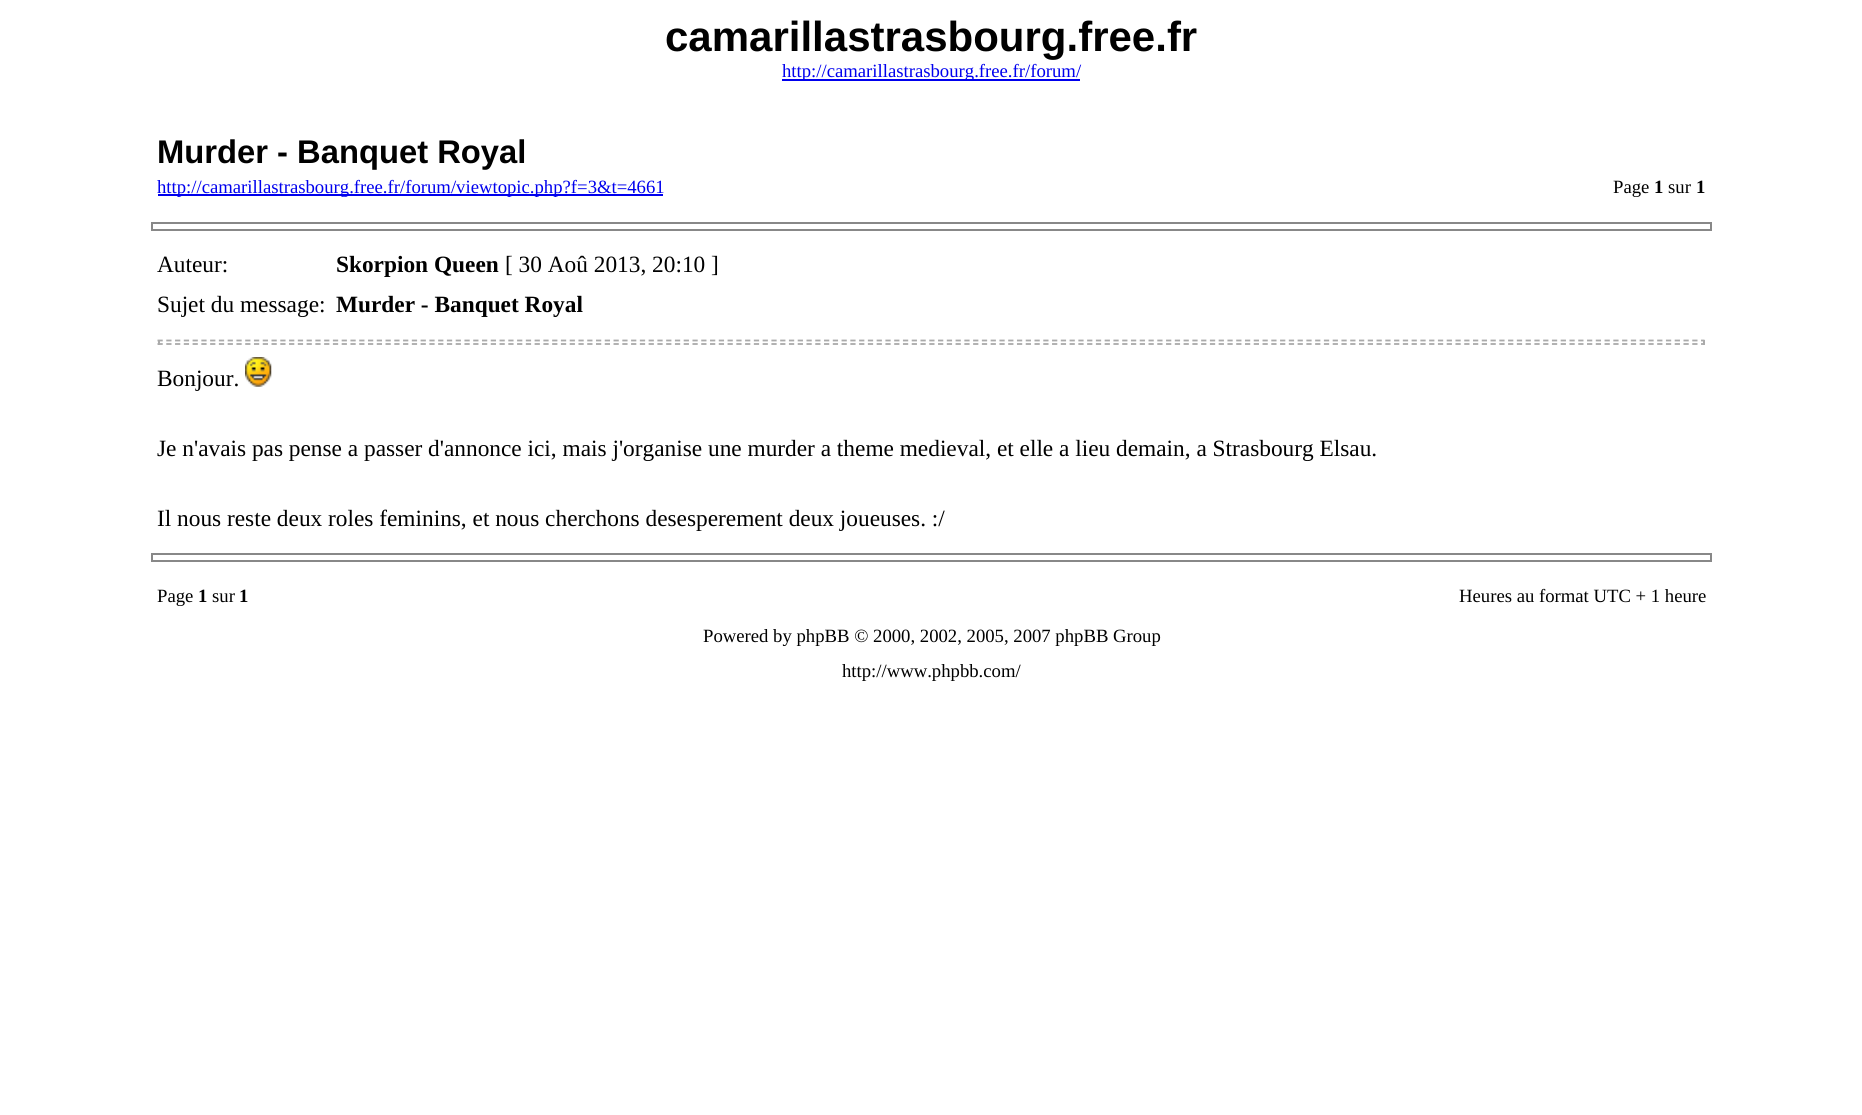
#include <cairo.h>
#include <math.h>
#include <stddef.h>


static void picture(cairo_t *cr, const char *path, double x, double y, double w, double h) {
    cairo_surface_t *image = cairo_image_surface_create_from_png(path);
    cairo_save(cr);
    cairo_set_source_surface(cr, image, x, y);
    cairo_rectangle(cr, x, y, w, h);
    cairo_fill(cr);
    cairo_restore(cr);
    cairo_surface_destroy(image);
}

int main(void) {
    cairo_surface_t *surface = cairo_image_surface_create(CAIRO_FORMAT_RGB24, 1862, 1115);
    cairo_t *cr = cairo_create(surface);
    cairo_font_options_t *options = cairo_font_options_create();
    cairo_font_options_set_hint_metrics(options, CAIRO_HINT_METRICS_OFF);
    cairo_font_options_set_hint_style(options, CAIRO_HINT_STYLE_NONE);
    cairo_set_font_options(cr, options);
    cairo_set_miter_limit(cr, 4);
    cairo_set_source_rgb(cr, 1, 1, 1);
    cairo_paint(cr);
    cairo_select_font_face(cr, "Liberation Sans", CAIRO_FONT_SLANT_NORMAL, CAIRO_FONT_WEIGHT_BOLD);
    cairo_set_font_size(cr, 42);
    cairo_set_source_rgb(cr, 0, 0, 0);
    cairo_move_to(cr, 665, 51);
    cairo_show_text(cr, "camarillastrasbourg.free.fr");
    cairo_set_source_rgb(cr, 0, 0, 0.933);
    cairo_rectangle(cr, 782, 79, 298, 2);
    cairo_fill(cr);
    cairo_select_font_face(cr, "Liberation Serif", CAIRO_FONT_SLANT_NORMAL, CAIRO_FONT_WEIGHT_NORMAL);
    cairo_set_font_size(cr, 18.7);
    cairo_move_to(cr, 782, 77);
    cairo_show_text(cr, "http://camarillastrasbourg.free.fr/forum/");
    cairo_select_font_face(cr, "Liberation Sans", CAIRO_FONT_SLANT_NORMAL, CAIRO_FONT_WEIGHT_BOLD);
    cairo_set_font_size(cr, 32.75);
    cairo_set_source_rgb(cr, 0, 0, 0);
    cairo_move_to(cr, 157, 163);
    cairo_show_text(cr, "Murder - Banquet Royal");
    cairo_set_source_rgb(cr, 0, 0, 0.933);
    cairo_rectangle(cr, 158, 194, 505, 2);
    cairo_fill(cr);
    cairo_select_font_face(cr, "Liberation Serif", CAIRO_FONT_SLANT_NORMAL, CAIRO_FONT_WEIGHT_NORMAL);
    cairo_set_font_size(cr, 18.7);
    cairo_move_to(cr, 157, 193);
    cairo_show_text(cr, "http://camarillastrasbourg.free.fr/forum/viewtopic.php?f=3&t=4661");
    cairo_set_source_rgb(cr, 0, 0, 0);
    cairo_move_to(cr, 1613, 193);
    cairo_show_text(cr, "Page");
    cairo_select_font_face(cr, "Liberation Serif", CAIRO_FONT_SLANT_NORMAL, CAIRO_FONT_WEIGHT_BOLD);
    cairo_move_to(cr, 1654, 193);
    cairo_show_text(cr, "1");
    cairo_select_font_face(cr, "Liberation Serif", CAIRO_FONT_SLANT_NORMAL, CAIRO_FONT_WEIGHT_NORMAL);
    cairo_move_to(cr, 1668, 193);
    cairo_show_text(cr, "sur");
    cairo_select_font_face(cr, "Liberation Serif", CAIRO_FONT_SLANT_NORMAL, CAIRO_FONT_WEIGHT_BOLD);
    cairo_move_to(cr, 1696, 193);
    cairo_show_text(cr, "1");
    cairo_rectangle(cr, 152, 223, 1559, 7);
    cairo_set_source_rgb(cr, 0.533, 0.533, 0.533);
    cairo_stroke(cr);
    cairo_select_font_face(cr, "Liberation Serif", CAIRO_FONT_SLANT_NORMAL, CAIRO_FONT_WEIGHT_NORMAL);
    cairo_set_font_size(cr, 23.33);
    cairo_set_source_rgb(cr, 0, 0, 0);
    cairo_move_to(cr, 157, 272);
    cairo_show_text(cr, "Auteur:");
    cairo_select_font_face(cr, "Liberation Serif", CAIRO_FONT_SLANT_NORMAL, CAIRO_FONT_WEIGHT_BOLD);
    cairo_move_to(cr, 336, 272);
    cairo_show_text(cr, "Skorpion Queen");
    cairo_select_font_face(cr, "Liberation Serif", CAIRO_FONT_SLANT_NORMAL, CAIRO_FONT_WEIGHT_NORMAL);
    cairo_move_to(cr, 505, 272);
    cairo_show_text(cr, "[ 30 Aoû 2013, 20:10 ]");
    cairo_move_to(cr, 157, 312);
    cairo_show_text(cr, "Sujet du message:");
    cairo_select_font_face(cr, "Liberation Serif", CAIRO_FONT_SLANT_NORMAL, CAIRO_FONT_WEIGHT_BOLD);
    cairo_move_to(cr, 336, 312);
    cairo_show_text(cr, "Murder - Banquet Royal");
    cairo_new_path(cr);
    cairo_move_to(cr, 157.5, 340.5);
    cairo_line_to(cr, 1704.5, 340.5);
    cairo_set_source_rgb(cr, 0.667, 0.667, 0.667);
    cairo_set_line_width(cr, 1.8);
    cairo_set_dash(cr, (double[]){5.25, 3.52}, 2, 0);
    cairo_stroke(cr);
    cairo_rectangle(cr, 1703, 340, 2, 5);
    cairo_fill(cr);
    cairo_new_path(cr);
    cairo_move_to(cr, 157.5, 344);
    cairo_line_to(cr, 1704.5, 344);
    cairo_stroke(cr);
    cairo_rectangle(cr, 158, 340, 2, 5);
    cairo_fill(cr);
    cairo_select_font_face(cr, "Liberation Serif", CAIRO_FONT_SLANT_NORMAL, CAIRO_FONT_WEIGHT_NORMAL);
    cairo_set_source_rgb(cr, 0, 0, 0);
    cairo_move_to(cr, 157, 386);
    cairo_show_text(cr, "Bonjour.");
    picture(cr, "img1.png", 245, 357, 27, 30);
    cairo_move_to(cr, 157, 456);
    cairo_show_text(cr, "Je n'avais pas pense a passer d'annonce ici, mais j'organise une murder a theme medieval, et elle a lieu demain, a Strasbourg Elsau.");
    cairo_move_to(cr, 157, 526);
    cairo_show_text(cr, "Il nous reste deux roles feminins, et nous cherchons desesperement deux joueuses. :/");
    cairo_rectangle(cr, 152, 554, 1559, 7);
    cairo_set_source_rgb(cr, 0.533, 0.533, 0.533);
    cairo_set_line_width(cr, 2);
    cairo_set_dash(cr, NULL, 0, 0);
    cairo_stroke(cr);
    cairo_set_font_size(cr, 18.7);
    cairo_set_source_rgb(cr, 0, 0, 0);
    cairo_move_to(cr, 157, 602);
    cairo_show_text(cr, "Page");
    cairo_select_font_face(cr, "Liberation Serif", CAIRO_FONT_SLANT_NORMAL, CAIRO_FONT_WEIGHT_BOLD);
    cairo_move_to(cr, 198, 602);
    cairo_show_text(cr, "1");
    cairo_select_font_face(cr, "Liberation Serif", CAIRO_FONT_SLANT_NORMAL, CAIRO_FONT_WEIGHT_NORMAL);
    cairo_move_to(cr, 212, 602);
    cairo_show_text(cr, "sur");
    cairo_select_font_face(cr, "Liberation Serif", CAIRO_FONT_SLANT_NORMAL, CAIRO_FONT_WEIGHT_BOLD);
    cairo_move_to(cr, 239, 602);
    cairo_show_text(cr, "1");
    cairo_select_font_face(cr, "Liberation Serif", CAIRO_FONT_SLANT_NORMAL, CAIRO_FONT_WEIGHT_NORMAL);
    cairo_move_to(cr, 1459, 602);
    cairo_show_text(cr, "Heures au format UTC + 1 heure");
    cairo_move_to(cr, 703, 642);
    cairo_show_text(cr, "Powered by phpBB © 2000, 2002, 2005, 2007 phpBB Group");
    cairo_move_to(cr, 842, 677);
    cairo_show_text(cr, "http://www.phpbb.com/");
    cairo_surface_write_to_png(surface, "page.png");
    cairo_font_options_destroy(options);
    cairo_destroy(cr);
    cairo_surface_destroy(surface);
    return 0;
}
